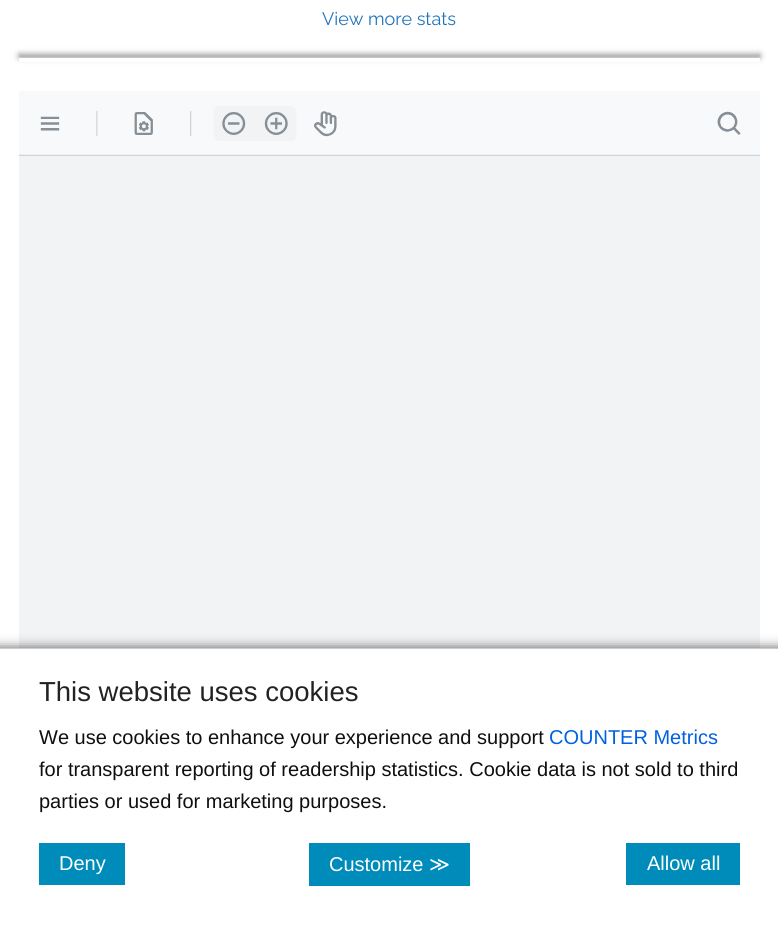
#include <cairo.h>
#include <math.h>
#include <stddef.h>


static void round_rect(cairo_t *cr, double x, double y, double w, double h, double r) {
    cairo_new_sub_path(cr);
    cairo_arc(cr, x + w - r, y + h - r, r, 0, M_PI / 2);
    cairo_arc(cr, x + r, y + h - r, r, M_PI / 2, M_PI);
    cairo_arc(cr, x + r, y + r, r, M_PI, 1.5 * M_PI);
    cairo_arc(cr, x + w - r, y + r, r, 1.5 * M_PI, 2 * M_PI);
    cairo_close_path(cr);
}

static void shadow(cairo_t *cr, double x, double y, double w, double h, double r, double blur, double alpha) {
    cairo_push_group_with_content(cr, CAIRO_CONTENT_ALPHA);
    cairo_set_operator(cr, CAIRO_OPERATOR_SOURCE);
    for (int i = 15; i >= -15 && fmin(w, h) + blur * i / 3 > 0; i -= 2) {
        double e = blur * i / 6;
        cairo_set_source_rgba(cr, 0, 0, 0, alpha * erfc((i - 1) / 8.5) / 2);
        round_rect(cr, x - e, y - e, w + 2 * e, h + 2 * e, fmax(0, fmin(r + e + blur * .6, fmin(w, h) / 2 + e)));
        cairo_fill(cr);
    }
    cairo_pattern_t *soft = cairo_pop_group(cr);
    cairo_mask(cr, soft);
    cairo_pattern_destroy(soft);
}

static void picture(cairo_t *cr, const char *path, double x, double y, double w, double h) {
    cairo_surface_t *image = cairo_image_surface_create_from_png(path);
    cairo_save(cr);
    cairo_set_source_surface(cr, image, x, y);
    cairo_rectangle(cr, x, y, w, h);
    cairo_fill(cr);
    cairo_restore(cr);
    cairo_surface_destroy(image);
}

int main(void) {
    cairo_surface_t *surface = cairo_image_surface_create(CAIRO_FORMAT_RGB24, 778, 931);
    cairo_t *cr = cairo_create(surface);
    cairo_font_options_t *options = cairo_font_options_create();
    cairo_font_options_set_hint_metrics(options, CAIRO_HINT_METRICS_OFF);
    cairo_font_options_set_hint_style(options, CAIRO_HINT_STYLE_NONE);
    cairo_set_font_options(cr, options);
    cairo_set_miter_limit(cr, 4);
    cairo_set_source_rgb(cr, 1, 1, 1);
    cairo_paint(cr);
    cairo_select_font_face(cr, "Raleway", CAIRO_FONT_SLANT_NORMAL, CAIRO_FONT_WEIGHT_NORMAL);
    cairo_set_font_size(cr, 18);
    cairo_set_source_rgb(cr, 0.125, 0.451, 0.733);
    cairo_move_to(cr, 322, 25);
    cairo_show_text(cr, "View more stats");
    cairo_save(cr);
    cairo_set_fill_rule(cr, CAIRO_FILL_RULE_EVEN_ODD);
    cairo_new_path(cr);
    cairo_move_to(cr, 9, 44);
    cairo_line_to(cr, 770, 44);
    cairo_line_to(cr, 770, 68);
    cairo_line_to(cr, 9, 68);
    cairo_close_path(cr);
    cairo_move_to(cr, 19, 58);
    cairo_line_to(cr, 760, 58);
    cairo_line_to(cr, 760, 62);
    cairo_line_to(cr, 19, 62);
    cairo_close_path(cr);
    cairo_clip(cr);
    cairo_set_source_rgb(cr, 0, 0, 0);
    shadow(cr, 19, 54, 741, 4, 0, 3, 0.4);
    cairo_restore(cr);
    picture(cr, "img1.png", 19, 91, 741, 557);
    cairo_set_source_rgb(cr, 0, 0, 0);
    shadow(cr, -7, 651, 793, 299, 0, 7, 1);
    cairo_set_source_rgb(cr, 1, 1, 1);
    cairo_rectangle(cr, 0, 649, 778, 282);
    cairo_fill(cr);
    cairo_set_source_rgb(cr, 0.8, 0.8, 0.8);
    cairo_rectangle(cr, 0, 648, 778, 1);
    cairo_fill(cr);
    cairo_select_font_face(cr, "Liberation Sans", CAIRO_FONT_SLANT_NORMAL, CAIRO_FONT_WEIGHT_NORMAL);
    cairo_set_font_size(cr, 27.5);
    cairo_set_source_rgb(cr, 0.133, 0.133, 0.133);
    cairo_move_to(cr, 39, 701);
    cairo_show_text(cr, "This website uses cookies");
    cairo_set_font_size(cr, 20);
    cairo_set_source_rgb(cr, 0.059, 0.059, 0.059);
    cairo_move_to(cr, 39, 744);
    cairo_show_text(cr, "We use cookies to enhance your experience and support");
    cairo_set_source_rgb(cr, 0, 0.38, 0.878);
    cairo_move_to(cr, 549, 744);
    cairo_show_text(cr, "COUNTER Metrics");
    cairo_set_source_rgb(cr, 0.059, 0.059, 0.059);
    cairo_move_to(cr, 39, 776);
    cairo_show_text(cr, "for transparent reporting of readership statistics. Cookie data is not sold to third");
    cairo_move_to(cr, 39, 808);
    cairo_show_text(cr, "parties or used for marketing purposes.");
    cairo_set_source_rgb(cr, 0, 0.549, 0.729);
    cairo_rectangle(cr, 39, 843, 86, 42);
    cairo_fill(cr);
    cairo_set_source_rgb(cr, 1, 1, 1);
    cairo_move_to(cr, 59, 870);
    cairo_show_text(cr, "Deny");
    cairo_set_source_rgb(cr, 0, 0.549, 0.729);
    cairo_rectangle(cr, 309, 843, 161, 43);
    cairo_fill(cr);
    cairo_set_source_rgb(cr, 1, 1, 1);
    cairo_move_to(cr, 329, 871);
    cairo_show_text(cr, "Customize");
    cairo_select_font_face(cr, "DejaVu Sans", CAIRO_FONT_SLANT_NORMAL, CAIRO_FONT_WEIGHT_NORMAL);
    cairo_move_to(cr, 429, 871);
    cairo_show_text(cr, "≫");
    cairo_set_source_rgb(cr, 0, 0.549, 0.729);
    cairo_rectangle(cr, 626, 843, 114, 42);
    cairo_fill(cr);
    cairo_select_font_face(cr, "Liberation Sans", CAIRO_FONT_SLANT_NORMAL, CAIRO_FONT_WEIGHT_NORMAL);
    cairo_set_source_rgb(cr, 1, 1, 1);
    cairo_move_to(cr, 647, 870);
    cairo_show_text(cr, "Allow all");
    cairo_surface_write_to_png(surface, "page.png");
    cairo_font_options_destroy(options);
    cairo_destroy(cr);
    cairo_surface_destroy(surface);
    return 0;
}
